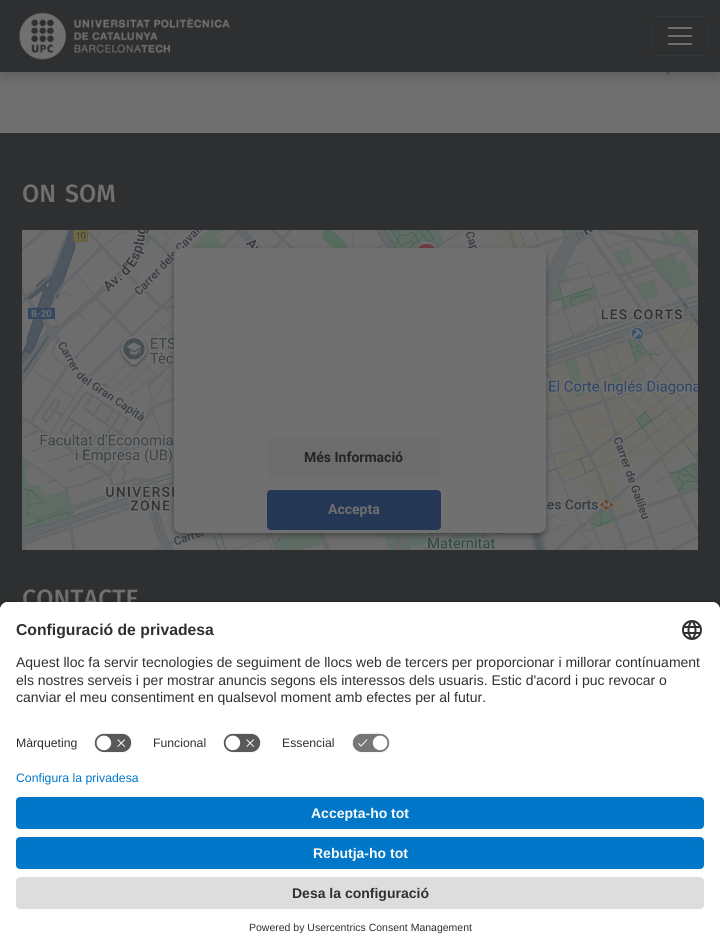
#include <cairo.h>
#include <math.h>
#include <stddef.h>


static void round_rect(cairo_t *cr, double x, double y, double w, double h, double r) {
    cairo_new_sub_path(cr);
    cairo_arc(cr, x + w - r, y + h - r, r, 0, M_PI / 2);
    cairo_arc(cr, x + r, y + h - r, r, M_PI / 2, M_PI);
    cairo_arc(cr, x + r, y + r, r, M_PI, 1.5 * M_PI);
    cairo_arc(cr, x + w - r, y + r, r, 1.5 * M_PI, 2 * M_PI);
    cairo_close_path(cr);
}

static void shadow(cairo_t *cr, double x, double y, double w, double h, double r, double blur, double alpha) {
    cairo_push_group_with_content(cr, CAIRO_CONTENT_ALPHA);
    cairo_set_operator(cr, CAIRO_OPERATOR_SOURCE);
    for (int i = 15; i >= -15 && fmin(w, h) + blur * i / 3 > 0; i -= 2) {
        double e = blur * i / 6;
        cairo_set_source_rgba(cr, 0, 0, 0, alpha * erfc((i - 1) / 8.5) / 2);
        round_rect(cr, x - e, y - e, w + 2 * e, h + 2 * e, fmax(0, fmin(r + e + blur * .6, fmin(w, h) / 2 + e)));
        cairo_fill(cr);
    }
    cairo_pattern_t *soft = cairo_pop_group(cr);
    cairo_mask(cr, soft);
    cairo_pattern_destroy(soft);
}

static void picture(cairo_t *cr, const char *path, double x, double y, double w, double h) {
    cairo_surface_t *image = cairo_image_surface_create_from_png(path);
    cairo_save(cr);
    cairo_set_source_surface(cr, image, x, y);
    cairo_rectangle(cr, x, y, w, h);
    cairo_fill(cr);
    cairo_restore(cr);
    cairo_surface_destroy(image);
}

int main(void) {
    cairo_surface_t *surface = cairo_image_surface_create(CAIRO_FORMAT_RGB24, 720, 949);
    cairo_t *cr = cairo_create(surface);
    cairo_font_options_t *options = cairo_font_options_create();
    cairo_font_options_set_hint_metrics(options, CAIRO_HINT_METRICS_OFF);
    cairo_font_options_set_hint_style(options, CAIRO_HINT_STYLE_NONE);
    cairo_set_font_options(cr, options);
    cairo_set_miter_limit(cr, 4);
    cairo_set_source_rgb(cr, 0.439, 0.439, 0.439);
    cairo_paint(cr);
    picture(cr, "img3.png", 666, 72, 4, 3);
    cairo_set_source_rgb(cr, 0.141, 0.141, 0.141);
    shadow(cr, 0, 7, 720, 72, 0, 4, 0.2);
    cairo_set_source_rgb(cr, 0.18, 0.184, 0.188);
    cairo_rectangle(cr, 0, 0, 720, 72);
    cairo_fill(cr);
    picture(cr, "img1.png", 19, 12, 211, 48);
    round_rect(cr, 652.5, 16.5, 55, 39, 5.5);
    cairo_set_source_rgb(cr, 0.204, 0.208, 0.212);
    cairo_set_line_width(cr, 1);
    cairo_stroke(cr);
    picture(cr, "img2.png", 668, 27, 24, 18);
    cairo_set_source_rgb(cr, 0.18, 0.184, 0.188);
    cairo_rectangle(cr, 0, 133, 720, 477);
    cairo_fill(cr);
    cairo_select_font_face(cr, "Fira Sans Medium", CAIRO_FONT_SLANT_NORMAL, CAIRO_FONT_WEIGHT_NORMAL);
    cairo_set_font_size(cr, 25);
    cairo_set_source_rgb(cr, 0.439, 0.439, 0.439);
    cairo_move_to(cr, 22, 202);
    cairo_show_text(cr, "ON");
    cairo_move_to(cr, 65, 202);
    cairo_show_text(cr, "SOM");
    picture(cr, "img4.png", 22, 230, 676, 320);
    cairo_set_source_rgb(cr, 0.141, 0.141, 0.141);
    shadow(cr, 174, 251, 372, 285, 8, 3, 0.5);
    cairo_set_source_rgb(cr, 0.439, 0.439, 0.439);
    round_rect(cr, 174, 248, 372, 285, 8);
    cairo_fill(cr);
    cairo_set_source_rgb(cr, 0.427, 0.427, 0.427);
    round_rect(cr, 267, 438, 174, 40, 4);
    cairo_fill(cr);
    cairo_select_font_face(cr, "Roboto", CAIRO_FONT_SLANT_NORMAL, CAIRO_FONT_WEIGHT_BOLD);
    cairo_set_font_size(cr, 14);
    cairo_set_source_rgb(cr, 0.141, 0.141, 0.141);
    cairo_move_to(cr, 304, 462);
    cairo_show_text(cr, "Més Informació");
    cairo_set_source_rgb(cr, 0.141, 0.22, 0.333);
    round_rect(cr, 267, 490, 174, 40, 4);
    cairo_fill(cr);
    cairo_set_source_rgb(cr, 0.439, 0.439, 0.439);
    cairo_move_to(cr, 328, 514);
    cairo_show_text(cr, "Accepta");
    cairo_select_font_face(cr, "Fira Sans Medium", CAIRO_FONT_SLANT_NORMAL, CAIRO_FONT_WEIGHT_NORMAL);
    cairo_set_font_size(cr, 25);
    cairo_move_to(cr, 22, 607);
    cairo_show_text(cr, "CONTACTE");
    cairo_set_source_rgb(cr, 0, 0, 0);
    shadow(cr, 0, 605, 720, 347, 8, 3.5, 0.8);
    cairo_set_source_rgb(cr, 1, 1, 1);
    cairo_new_path(cr);
    cairo_move_to(cr, 8, 602);
    cairo_line_to(cr, 712, 602);
    cairo_curve_to(cr, 716.5, 602, 720, 605.5, 720, 610);
    cairo_line_to(cr, 720, 771);
    cairo_line_to(cr, 0, 771);
    cairo_line_to(cr, 0, 610);
    cairo_curve_to(cr, 0, 605.5, 3.5, 602, 8, 602);
    cairo_close_path(cr);
    cairo_fill(cr);
    cairo_new_path(cr);
    cairo_move_to(cr, 8, 602);
    cairo_line_to(cr, 712, 602);
    cairo_curve_to(cr, 716.5, 602, 720, 605.5, 720, 610);
    cairo_line_to(cr, 720, 727);
    cairo_line_to(cr, 0, 727);
    cairo_line_to(cr, 0, 610);
    cairo_curve_to(cr, 0, 605.5, 3.5, 602, 8, 602);
    cairo_close_path(cr);
    cairo_fill(cr);
    cairo_select_font_face(cr, "Liberation Sans", CAIRO_FONT_SLANT_NORMAL, CAIRO_FONT_WEIGHT_BOLD);
    cairo_set_font_size(cr, 15.75);
    cairo_set_source_rgb(cr, 0.188, 0.188, 0.188);
    cairo_move_to(cr, 16, 635);
    cairo_show_text(cr, "Configuració de privadesa");
    picture(cr, "img5.png", 682, 620, 20, 20);
    cairo_select_font_face(cr, "Liberation Sans", CAIRO_FONT_SLANT_NORMAL, CAIRO_FONT_WEIGHT_NORMAL);
    cairo_set_font_size(cr, 14);
    cairo_move_to(cr, 16, 667);
    cairo_show_text(cr, "Aquest lloc fa servir tecnologies de seguiment de llocs web de tercers per proporcionar i millorar contínuament");
    cairo_move_to(cr, 16, 685);
    cairo_show_text(cr, "els nostres serveis i per mostrar anuncis segons els interessos dels usuaris. Estic d'acord i puc revocar o");
    cairo_move_to(cr, 16, 702);
    cairo_show_text(cr, "canviar el meu consentiment en qualsevol moment amb efectes per al futur.");
    cairo_set_font_size(cr, 12.25);
    cairo_move_to(cr, 16, 747);
    cairo_show_text(cr, "Màrqueting");
    picture(cr, "img6.png", 94, 733, 38, 20);
    cairo_move_to(cr, 153, 747);
    cairo_show_text(cr, "Funcional");
    picture(cr, "img6.png", 223, 733, 38, 20);
    cairo_move_to(cr, 282, 747);
    cairo_show_text(cr, "Essencial");
    picture(cr, "img7.png", 352, 733, 38, 20);
    cairo_set_source_rgb(cr, 1, 1, 1);
    cairo_rectangle(cr, 0, 771, 720, 178);
    cairo_fill(cr);
    cairo_set_source_rgb(cr, 0, 0.467, 0.784);
    cairo_move_to(cr, 16, 782);
    cairo_show_text(cr, "Configura la privadesa");
    round_rect(cr, 16, 797, 688, 32, 4);
    cairo_fill(cr);
    cairo_select_font_face(cr, "Liberation Sans", CAIRO_FONT_SLANT_NORMAL, CAIRO_FONT_WEIGHT_BOLD);
    cairo_set_font_size(cr, 14);
    cairo_set_source_rgb(cr, 0.98, 0.98, 0.98);
    cairo_move_to(cr, 311, 818);
    cairo_show_text(cr, "Accepta-ho tot");
    cairo_set_source_rgb(cr, 0, 0.467, 0.784);
    round_rect(cr, 16, 837, 688, 32, 4);
    cairo_fill(cr);
    cairo_set_source_rgb(cr, 0.98, 0.98, 0.98);
    cairo_move_to(cr, 313, 858);
    cairo_show_text(cr, "Rebutja-ho tot");
    cairo_set_source_rgb(cr, 0.867, 0.867, 0.867);
    round_rect(cr, 16, 877, 688, 32, 4);
    cairo_fill(cr);
    cairo_set_source_rgb(cr, 0.188, 0.188, 0.188);
    cairo_move_to(cr, 292, 898);
    cairo_show_text(cr, "Desa la configuració");
    cairo_select_font_face(cr, "Liberation Sans", CAIRO_FONT_SLANT_NORMAL, CAIRO_FONT_WEIGHT_NORMAL);
    cairo_set_font_size(cr, 10.5);
    cairo_move_to(cr, 249, 931);
    cairo_show_text(cr, "Powered by Usercentrics Consent Management");
    cairo_surface_write_to_png(surface, "page.png");
    cairo_font_options_destroy(options);
    cairo_destroy(cr);
    cairo_surface_destroy(surface);
    return 0;
}
